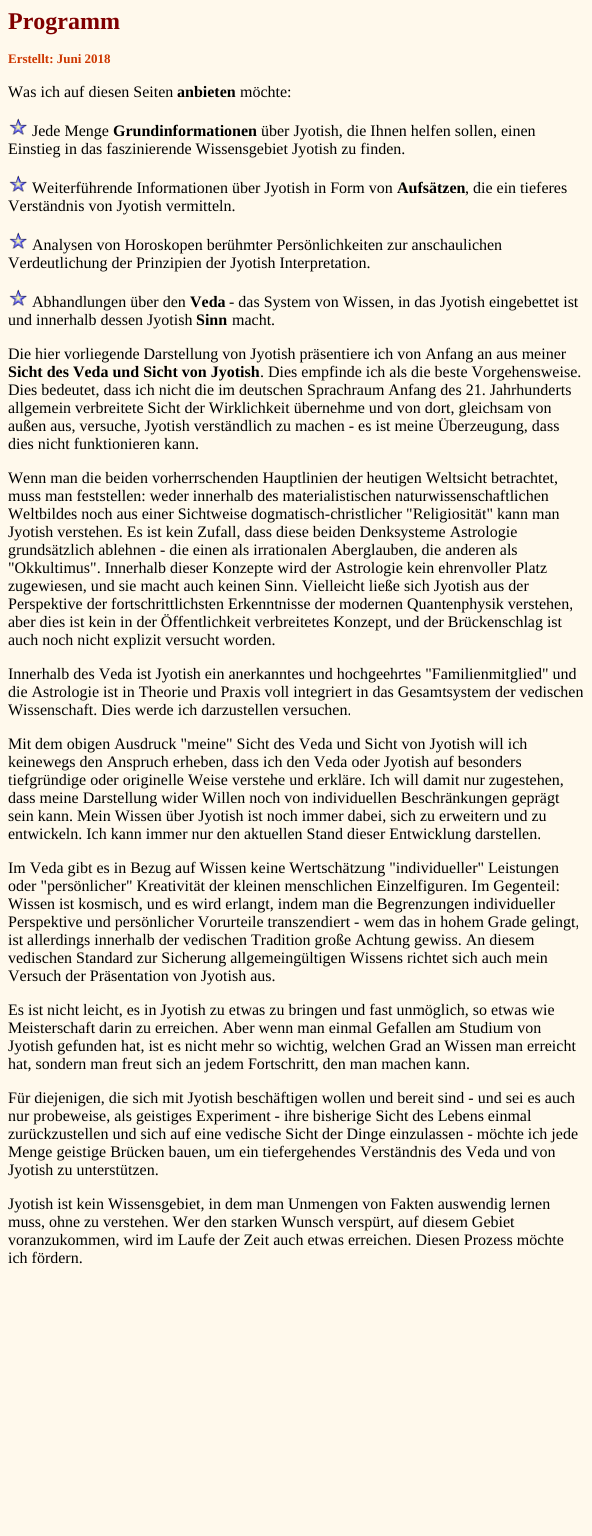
#include <cairo.h>
#include <math.h>
#include <stddef.h>


static void picture(cairo_t *cr, const char *path, double x, double y, double w, double h) {
    cairo_surface_t *image = cairo_image_surface_create_from_png(path);
    cairo_save(cr);
    cairo_set_source_surface(cr, image, x, y);
    cairo_rectangle(cr, x, y, w, h);
    cairo_fill(cr);
    cairo_restore(cr);
    cairo_surface_destroy(image);
}

int main(void) {
    cairo_surface_t *surface = cairo_image_surface_create(CAIRO_FORMAT_RGB24, 592, 1536);
    cairo_t *cr = cairo_create(surface);
    cairo_font_options_t *options = cairo_font_options_create();
    cairo_font_options_set_hint_metrics(options, CAIRO_HINT_METRICS_OFF);
    cairo_font_options_set_hint_style(options, CAIRO_HINT_STYLE_NONE);
    cairo_set_font_options(cr, options);
    cairo_set_miter_limit(cr, 4);
    cairo_set_source_rgb(cr, 1, 0.973, 0.922);
    cairo_paint(cr);
    cairo_select_font_face(cr, "Liberation Serif", CAIRO_FONT_SLANT_NORMAL, CAIRO_FONT_WEIGHT_BOLD);
    cairo_set_font_size(cr, 24);
    cairo_set_source_rgb(cr, 0.502, 0, 0);
    cairo_move_to(cr, 8, 29);
    cairo_show_text(cr, "Programm");
    cairo_set_font_size(cr, 13);
    cairo_set_source_rgb(cr, 0.804, 0.216, 0);
    cairo_move_to(cr, 8, 63);
    cairo_show_text(cr, "Erstellt: Juni 2018");
    cairo_select_font_face(cr, "Liberation Serif", CAIRO_FONT_SLANT_NORMAL, CAIRO_FONT_WEIGHT_NORMAL);
    cairo_set_font_size(cr, 16);
    cairo_set_source_rgb(cr, 0, 0, 0);
    cairo_move_to(cr, 8, 97);
    cairo_show_text(cr, "Was ich auf diesen Seiten");
    cairo_select_font_face(cr, "Liberation Serif", CAIRO_FONT_SLANT_NORMAL, CAIRO_FONT_WEIGHT_BOLD);
    cairo_move_to(cr, 177, 97);
    cairo_show_text(cr, "anbieten");
    cairo_select_font_face(cr, "Liberation Serif", CAIRO_FONT_SLANT_NORMAL, CAIRO_FONT_WEIGHT_NORMAL);
    cairo_move_to(cr, 240, 97);
    cairo_show_text(cr, "möchte:");
    picture(cr, "img1.png", 9, 118, 18, 17);
    cairo_move_to(cr, 32, 136);
    cairo_show_text(cr, "Jede Menge");
    cairo_select_font_face(cr, "Liberation Serif", CAIRO_FONT_SLANT_NORMAL, CAIRO_FONT_WEIGHT_BOLD);
    cairo_move_to(cr, 113, 136);
    cairo_show_text(cr, "Grundinformationen");
    cairo_select_font_face(cr, "Liberation Serif", CAIRO_FONT_SLANT_NORMAL, CAIRO_FONT_WEIGHT_NORMAL);
    cairo_move_to(cr, 261, 136);
    cairo_show_text(cr, "über Jyotish, die Ihnen helfen sollen, einen");
    cairo_move_to(cr, 8, 154);
    cairo_show_text(cr, "Einstieg in das faszinierende Wissensgebiet Jyotish zu finden.");
    picture(cr, "img1.png", 9, 175, 18, 17);
    cairo_move_to(cr, 32, 193);
    cairo_show_text(cr, "Weiterführende Informationen über Jyotish in Form von");
    cairo_select_font_face(cr, "Liberation Serif", CAIRO_FONT_SLANT_NORMAL, CAIRO_FONT_WEIGHT_BOLD);
    cairo_move_to(cr, 397, 193);
    cairo_show_text(cr, "Aufsätzen");
    cairo_select_font_face(cr, "Liberation Serif", CAIRO_FONT_SLANT_NORMAL, CAIRO_FONT_WEIGHT_NORMAL);
    cairo_move_to(cr, 465, 193);
    cairo_show_text(cr, ", die ein tieferes");
    cairo_move_to(cr, 8, 211);
    cairo_show_text(cr, "Verständnis von Jyotish vermitteln.");
    picture(cr, "img1.png", 9, 232, 18, 17);
    cairo_move_to(cr, 32, 250);
    cairo_show_text(cr, "Analysen von Horoskopen berühmter Persönlichkeiten zur anschaulichen");
    cairo_move_to(cr, 8, 268);
    cairo_show_text(cr, "Verdeutlichung der Prinzipien der Jyotish Interpretation.");
    picture(cr, "img1.png", 9, 289, 18, 17);
    cairo_move_to(cr, 32, 307);
    cairo_show_text(cr, "Abhandlungen über den");
    cairo_select_font_face(cr, "Liberation Serif", CAIRO_FONT_SLANT_NORMAL, CAIRO_FONT_WEIGHT_BOLD);
    cairo_move_to(cr, 190, 307);
    cairo_show_text(cr, "Veda");
    cairo_select_font_face(cr, "Liberation Serif", CAIRO_FONT_SLANT_NORMAL, CAIRO_FONT_WEIGHT_NORMAL);
    cairo_move_to(cr, 229, 307);
    cairo_show_text(cr, "- das System von Wissen, in das Jyotish eingebettet ist");
    cairo_move_to(cr, 8, 325);
    cairo_show_text(cr, "und innerhalb dessen Jyotish");
    cairo_select_font_face(cr, "Liberation Serif", CAIRO_FONT_SLANT_NORMAL, CAIRO_FONT_WEIGHT_BOLD);
    cairo_move_to(cr, 196, 325);
    cairo_show_text(cr, "Sinn");
    cairo_select_font_face(cr, "Liberation Serif", CAIRO_FONT_SLANT_NORMAL, CAIRO_FONT_WEIGHT_NORMAL);
    cairo_move_to(cr, 232, 325);
    cairo_show_text(cr, "macht.");
    cairo_move_to(cr, 8, 359);
    cairo_show_text(cr, "Die hier vorliegende Darstellung von Jyotish präsentiere ich von Anfang an aus meiner");
    cairo_select_font_face(cr, "Liberation Serif", CAIRO_FONT_SLANT_NORMAL, CAIRO_FONT_WEIGHT_BOLD);
    cairo_move_to(cr, 8, 377);
    cairo_show_text(cr, "Sicht des Veda und Sicht von Jyotish");
    cairo_select_font_face(cr, "Liberation Serif", CAIRO_FONT_SLANT_NORMAL, CAIRO_FONT_WEIGHT_NORMAL);
    cairo_move_to(cr, 260, 377);
    cairo_show_text(cr, ". Dies empfinde ich als die beste Vorgehensweise.");
    cairo_move_to(cr, 8, 395);
    cairo_show_text(cr, "Dies bedeutet, dass ich nicht die im deutschen Sprachraum Anfang des 21. Jahrhunderts");
    cairo_move_to(cr, 8, 413);
    cairo_show_text(cr, "allgemein verbreitete Sicht der Wirklichkeit übernehme und von dort, gleichsam von");
    cairo_move_to(cr, 8, 431);
    cairo_show_text(cr, "außen aus, versuche, Jyotish verständlich zu machen - es ist meine Überzeugung, dass");
    cairo_move_to(cr, 8, 449);
    cairo_show_text(cr, "dies nicht funktionieren kann.");
    cairo_move_to(cr, 8, 483);
    cairo_show_text(cr, "Wenn man die beiden vorherrschenden Hauptlinien der heutigen Weltsicht betrachtet,");
    cairo_move_to(cr, 8, 501);
    cairo_show_text(cr, "muss man feststellen: weder innerhalb des materialistischen naturwissenschaftlichen");
    cairo_move_to(cr, 8, 519);
    cairo_show_text(cr, "Weltbildes noch aus einer Sichtweise dogmatisch-christlicher \"Religiosität\" kann man");
    cairo_move_to(cr, 8, 537);
    cairo_show_text(cr, "Jyotish verstehen. Es ist kein Zufall, dass diese beiden Denksysteme Astrologie");
    cairo_move_to(cr, 8, 555);
    cairo_show_text(cr, "grundsätzlich ablehnen - die einen als irrationalen Aberglauben, die anderen als");
    cairo_move_to(cr, 8, 573);
    cairo_show_text(cr, "\"Okkultimus\". Innerhalb dieser Konzepte wird der Astrologie kein ehrenvoller Platz");
    cairo_move_to(cr, 8, 591);
    cairo_show_text(cr, "zugewiesen, und sie macht auch keinen Sinn. Vielleicht ließe sich Jyotish aus der");
    cairo_move_to(cr, 8, 609);
    cairo_show_text(cr, "Perspektive der fortschrittlichsten Erkenntnisse der modernen Quantenphysik verstehen,");
    cairo_move_to(cr, 8, 627);
    cairo_show_text(cr, "aber dies ist kein in der Öffentlichkeit verbreitetes Konzept, und der Brückenschlag ist");
    cairo_move_to(cr, 8, 645);
    cairo_show_text(cr, "auch noch nicht explizit versucht worden.");
    cairo_move_to(cr, 8, 679);
    cairo_show_text(cr, "Innerhalb des Veda ist Jyotish ein anerkanntes und hochgeehrtes \"Familienmitglied\" und");
    cairo_move_to(cr, 8, 697);
    cairo_show_text(cr, "die Astrologie ist in Theorie und Praxis voll integriert in das Gesamtsystem der vedischen");
    cairo_move_to(cr, 8, 715);
    cairo_show_text(cr, "Wissenschaft. Dies werde ich darzustellen versuchen.");
    cairo_move_to(cr, 8, 749);
    cairo_show_text(cr, "Mit dem obigen Ausdruck \"meine\" Sicht des Veda und Sicht von Jyotish will ich");
    cairo_move_to(cr, 8, 767);
    cairo_show_text(cr, "keinewegs den Anspruch erheben, dass ich den Veda oder Jyotish auf besonders");
    cairo_move_to(cr, 8, 785);
    cairo_show_text(cr, "tiefgründige oder originelle Weise verstehe und erkläre. Ich will damit nur zugestehen,");
    cairo_move_to(cr, 8, 803);
    cairo_show_text(cr, "dass meine Darstellung wider Willen noch von individuellen Beschränkungen geprägt");
    cairo_move_to(cr, 8, 821);
    cairo_show_text(cr, "sein kann. Mein Wissen über Jyotish ist noch immer dabei, sich zu erweitern und zu");
    cairo_move_to(cr, 8, 839);
    cairo_show_text(cr, "entwickeln. Ich kann immer nur den aktuellen Stand dieser Entwicklung darstellen.");
    cairo_move_to(cr, 8, 873);
    cairo_show_text(cr, "Im Veda gibt es in Bezug auf Wissen keine Wertschätzung \"individueller\" Leistungen");
    cairo_move_to(cr, 8, 891);
    cairo_show_text(cr, "oder \"persönlicher\" Kreativität der kleinen menschlichen Einzelfiguren. Im Gegenteil:");
    cairo_move_to(cr, 8, 909);
    cairo_show_text(cr, "Wissen ist kosmisch, und es wird erlangt, indem man die Begrenzungen individueller");
    cairo_move_to(cr, 8, 927);
    cairo_show_text(cr, "Perspektive und persönlicher Vorurteile transzendiert - wem das in hohem Grade gelingt,");
    cairo_move_to(cr, 8, 945);
    cairo_show_text(cr, "ist allerdings innerhalb der vedischen Tradition große Achtung gewiss. An diesem");
    cairo_move_to(cr, 8, 963);
    cairo_show_text(cr, "vedischen Standard zur Sicherung allgemeingültigen Wissens richtet sich auch mein");
    cairo_move_to(cr, 8, 981);
    cairo_show_text(cr, "Versuch der Präsentation von Jyotish aus.");
    cairo_move_to(cr, 8, 1015);
    cairo_show_text(cr, "Es ist nicht leicht, es in Jyotish zu etwas zu bringen und fast unmöglich, so etwas wie");
    cairo_move_to(cr, 8, 1033);
    cairo_show_text(cr, "Meisterschaft darin zu erreichen. Aber wenn man einmal Gefallen am Studium von");
    cairo_move_to(cr, 8, 1051);
    cairo_show_text(cr, "Jyotish gefunden hat, ist es nicht mehr so wichtig, welchen Grad an Wissen man erreicht");
    cairo_move_to(cr, 8, 1069);
    cairo_show_text(cr, "hat, sondern man freut sich an jedem Fortschritt, den man machen kann.");
    cairo_move_to(cr, 8, 1103);
    cairo_show_text(cr, "Für diejenigen, die sich mit Jyotish beschäftigen wollen und bereit sind - und sei es auch");
    cairo_move_to(cr, 8, 1121);
    cairo_show_text(cr, "nur probeweise, als geistiges Experiment - ihre bisherige Sicht des Lebens einmal");
    cairo_move_to(cr, 8, 1139);
    cairo_show_text(cr, "zurückzustellen und sich auf eine vedische Sicht der Dinge einzulassen - möchte ich jede");
    cairo_move_to(cr, 8, 1157);
    cairo_show_text(cr, "Menge geistige Brücken bauen, um ein tiefergehendes Verständnis des Veda und von");
    cairo_move_to(cr, 8, 1175);
    cairo_show_text(cr, "Jyotish zu unterstützen.");
    cairo_move_to(cr, 8, 1209);
    cairo_show_text(cr, "Jyotish ist kein Wissensgebiet, in dem man Unmengen von Fakten auswendig lernen");
    cairo_move_to(cr, 8, 1227);
    cairo_show_text(cr, "muss, ohne zu verstehen. Wer den starken Wunsch verspürt, auf diesem Gebiet");
    cairo_move_to(cr, 8, 1245);
    cairo_show_text(cr, "voranzukommen, wird im Laufe der Zeit auch etwas erreichen. Diesen Prozess möchte");
    cairo_move_to(cr, 8, 1263);
    cairo_show_text(cr, "ich fördern.");
    cairo_surface_write_to_png(surface, "page.png");
    cairo_font_options_destroy(options);
    cairo_destroy(cr);
    cairo_surface_destroy(surface);
    return 0;
}
